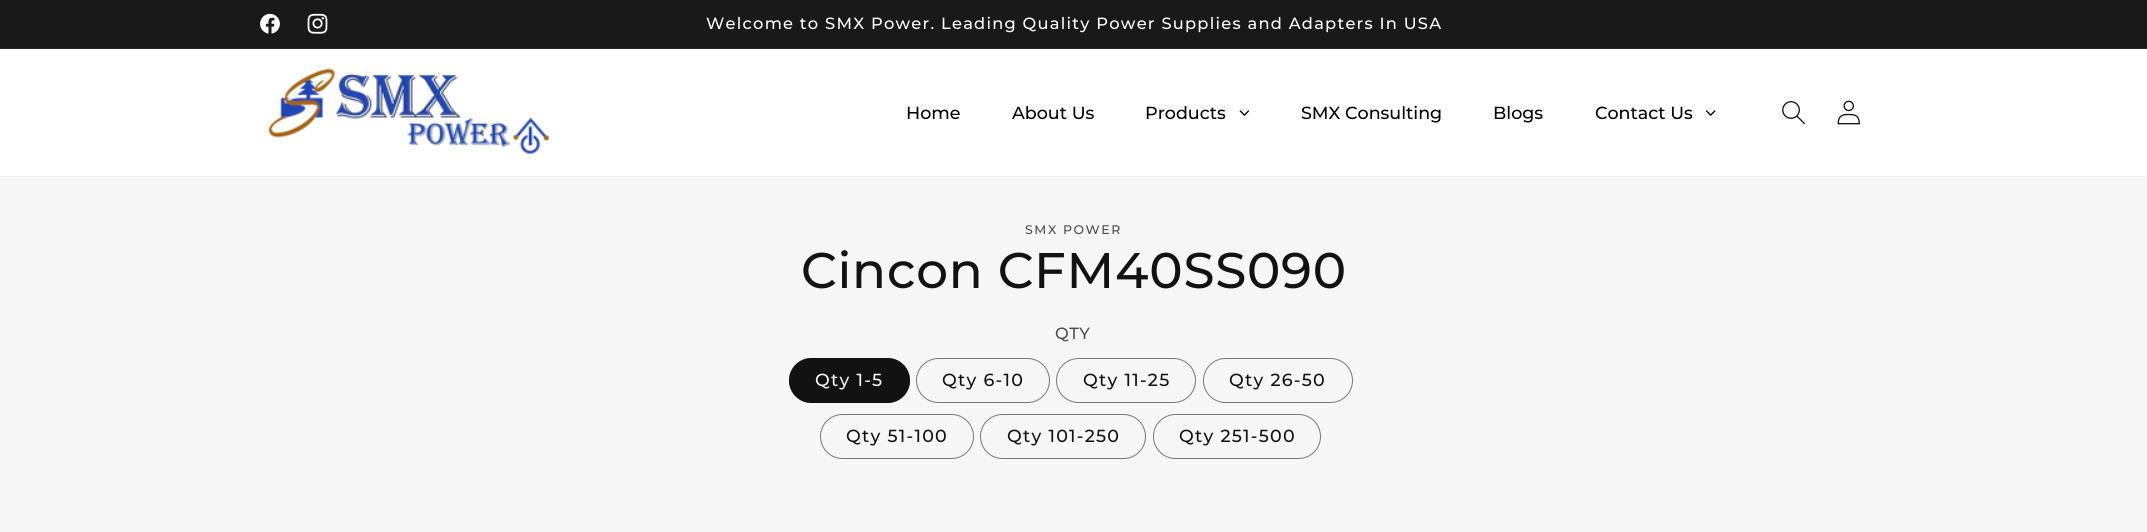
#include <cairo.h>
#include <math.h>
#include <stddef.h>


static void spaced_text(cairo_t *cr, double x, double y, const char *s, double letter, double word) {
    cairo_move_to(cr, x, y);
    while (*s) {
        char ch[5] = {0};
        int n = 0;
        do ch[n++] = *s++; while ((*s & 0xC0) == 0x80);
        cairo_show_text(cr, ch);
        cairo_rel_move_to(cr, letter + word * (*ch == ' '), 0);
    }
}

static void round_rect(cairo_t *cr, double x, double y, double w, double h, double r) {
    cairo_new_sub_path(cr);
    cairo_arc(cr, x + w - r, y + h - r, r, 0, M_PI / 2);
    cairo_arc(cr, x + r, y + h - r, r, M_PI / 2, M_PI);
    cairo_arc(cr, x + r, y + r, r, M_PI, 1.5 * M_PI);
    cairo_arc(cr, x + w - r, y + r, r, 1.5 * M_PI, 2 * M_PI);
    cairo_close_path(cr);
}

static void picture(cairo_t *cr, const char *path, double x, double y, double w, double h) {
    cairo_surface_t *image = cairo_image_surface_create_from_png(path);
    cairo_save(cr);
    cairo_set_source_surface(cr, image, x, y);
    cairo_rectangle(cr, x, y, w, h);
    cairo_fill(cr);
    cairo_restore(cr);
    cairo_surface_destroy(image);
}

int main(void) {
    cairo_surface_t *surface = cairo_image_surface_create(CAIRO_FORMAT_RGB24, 2147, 532);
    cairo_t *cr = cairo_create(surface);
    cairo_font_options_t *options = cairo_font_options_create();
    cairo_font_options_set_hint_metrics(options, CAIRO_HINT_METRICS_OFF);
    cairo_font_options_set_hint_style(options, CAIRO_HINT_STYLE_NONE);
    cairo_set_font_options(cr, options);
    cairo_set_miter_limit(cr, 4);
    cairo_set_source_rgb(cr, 1, 1, 1);
    cairo_paint(cr);
    cairo_set_source_rgb(cr, 0.098, 0.098, 0.098);
    cairo_rectangle(cr, 0, 0, 2147, 48);
    cairo_fill(cr);
    cairo_set_source_rgb(cr, 0.169, 0.169, 0.169);
    cairo_rectangle(cr, 0, 48, 2147, 1);
    cairo_fill(cr);
    picture(cr, "img1.png", 260, 13, 20, 21);
    picture(cr, "img2.png", 307, 13, 21, 21);
    cairo_select_font_face(cr, "Montserrat Thin", CAIRO_FONT_SLANT_NORMAL, CAIRO_FONT_WEIGHT_NORMAL);
    cairo_set_font_size(cr, 16.25);
    cairo_set_source_rgb(cr, 1, 1, 1);
    spaced_text(cr, 706, 29, "Welcome to SMX Power. Leading Quality Power Supplies and Adapters In USA", 1.25, 0);
    cairo_set_source_rgb(cr, 0.925, 0.925, 0.925);
    cairo_rectangle(cr, 0, 176, 2147, 1);
    cairo_fill(cr);
    picture(cr, "img3.png", 268, 68, 281, 86);
    cairo_set_font_size(cr, 17.5);
    cairo_set_source_rgb(cr, 0, 0, 0);
    cairo_move_to(cr, 906, 119);
    cairo_show_text(cr, "Home");
    cairo_move_to(cr, 1012, 119);
    cairo_show_text(cr, "About Us");
    cairo_move_to(cr, 1145, 119);
    cairo_show_text(cr, "Products");
    picture(cr, "img4.png", 1239, 110, 11, 6);
    cairo_move_to(cr, 1301, 119);
    cairo_show_text(cr, "SMX Consulting");
    cairo_move_to(cr, 1493, 119);
    cairo_show_text(cr, "Blogs");
    cairo_move_to(cr, 1595, 119);
    cairo_show_text(cr, "Contact Us");
    picture(cr, "img5.png", 1705, 110, 11, 6);
    picture(cr, "img6.png", 1782, 101, 23, 24);
    picture(cr, "img7.png", 1837, 100, 23, 25);
    cairo_set_source_rgb(cr, 0.961, 0.961, 0.961);
    cairo_rectangle(cr, 0, 178, 2147, 354);
    cairo_fill(cr);
    cairo_set_font_size(cr, 12.5);
    cairo_set_source_rgb(cr, 0.294, 0.294, 0.294);
    spaced_text(cr, 1025, 234, "SMX POWER", 1.6, 0);
    cairo_set_font_size(cr, 50);
    cairo_set_source_rgb(cr, 0.071, 0.071, 0.071);
    spaced_text(cr, 801, 288, "Cincon CFM40SS090", 0.75, 0);
    cairo_set_font_size(cr, 16.25);
    cairo_set_source_rgb(cr, 0.294, 0.294, 0.294);
    spaced_text(cr, 1055, 339, "QTY", 0.5, 0);
    cairo_set_source_rgb(cr, 0.071, 0.071, 0.071);
    round_rect(cr, 789, 358, 121, 45, 22.5);
    cairo_fill(cr);
    round_rect(cr, 789.5, 358.5, 120, 44, 22);
    cairo_set_source_rgba(cr, 0.071, 0.071, 0.071, 0.55);
    cairo_set_line_width(cr, 1);
    cairo_stroke(cr);
    cairo_set_font_size(cr, 17.5);
    cairo_set_source_rgb(cr, 0.961, 0.961, 0.961);
    spaced_text(cr, 815, 386, "Qty 1-5", 1.25, 0);
    round_rect(cr, 916.5, 358.5, 133, 44, 22);
    cairo_set_source_rgb(cr, 0.471, 0.471, 0.471);
    cairo_stroke(cr);
    cairo_set_source_rgb(cr, 0.071, 0.071, 0.071);
    spaced_text(cr, 942, 386, "Qty 6-10", 1.25, 0);
    round_rect(cr, 1056.5, 358.5, 139, 44, 22);
    cairo_set_source_rgb(cr, 0.471, 0.471, 0.471);
    cairo_stroke(cr);
    cairo_set_source_rgb(cr, 0.071, 0.071, 0.071);
    spaced_text(cr, 1083, 386, "Qty 11-25", 1.25, 0);
    round_rect(cr, 1203.5, 358.5, 149, 44, 22);
    cairo_set_source_rgb(cr, 0.471, 0.471, 0.471);
    cairo_stroke(cr);
    cairo_set_source_rgb(cr, 0.071, 0.071, 0.071);
    spaced_text(cr, 1229, 386, "Qty 26-50", 1.25, 0);
    round_rect(cr, 820.5, 414.5, 153, 44, 22);
    cairo_set_source_rgb(cr, 0.471, 0.471, 0.471);
    cairo_stroke(cr);
    cairo_set_source_rgb(cr, 0.071, 0.071, 0.071);
    spaced_text(cr, 846, 442, "Qty 51-100", 1.25, 0);
    round_rect(cr, 980.5, 414.5, 165, 44, 22);
    cairo_set_source_rgb(cr, 0.471, 0.471, 0.471);
    cairo_stroke(cr);
    cairo_set_source_rgb(cr, 0.071, 0.071, 0.071);
    spaced_text(cr, 1007, 442, "Qty 101-250", 1.25, 0);
    round_rect(cr, 1153.5, 414.5, 167, 44, 22);
    cairo_set_source_rgb(cr, 0.471, 0.471, 0.471);
    cairo_stroke(cr);
    cairo_set_source_rgb(cr, 0.071, 0.071, 0.071);
    spaced_text(cr, 1179, 442, "Qty 251-500", 1.25, 0);
    cairo_surface_write_to_png(surface, "page.png");
    cairo_font_options_destroy(options);
    cairo_destroy(cr);
    cairo_surface_destroy(surface);
    return 0;
}
